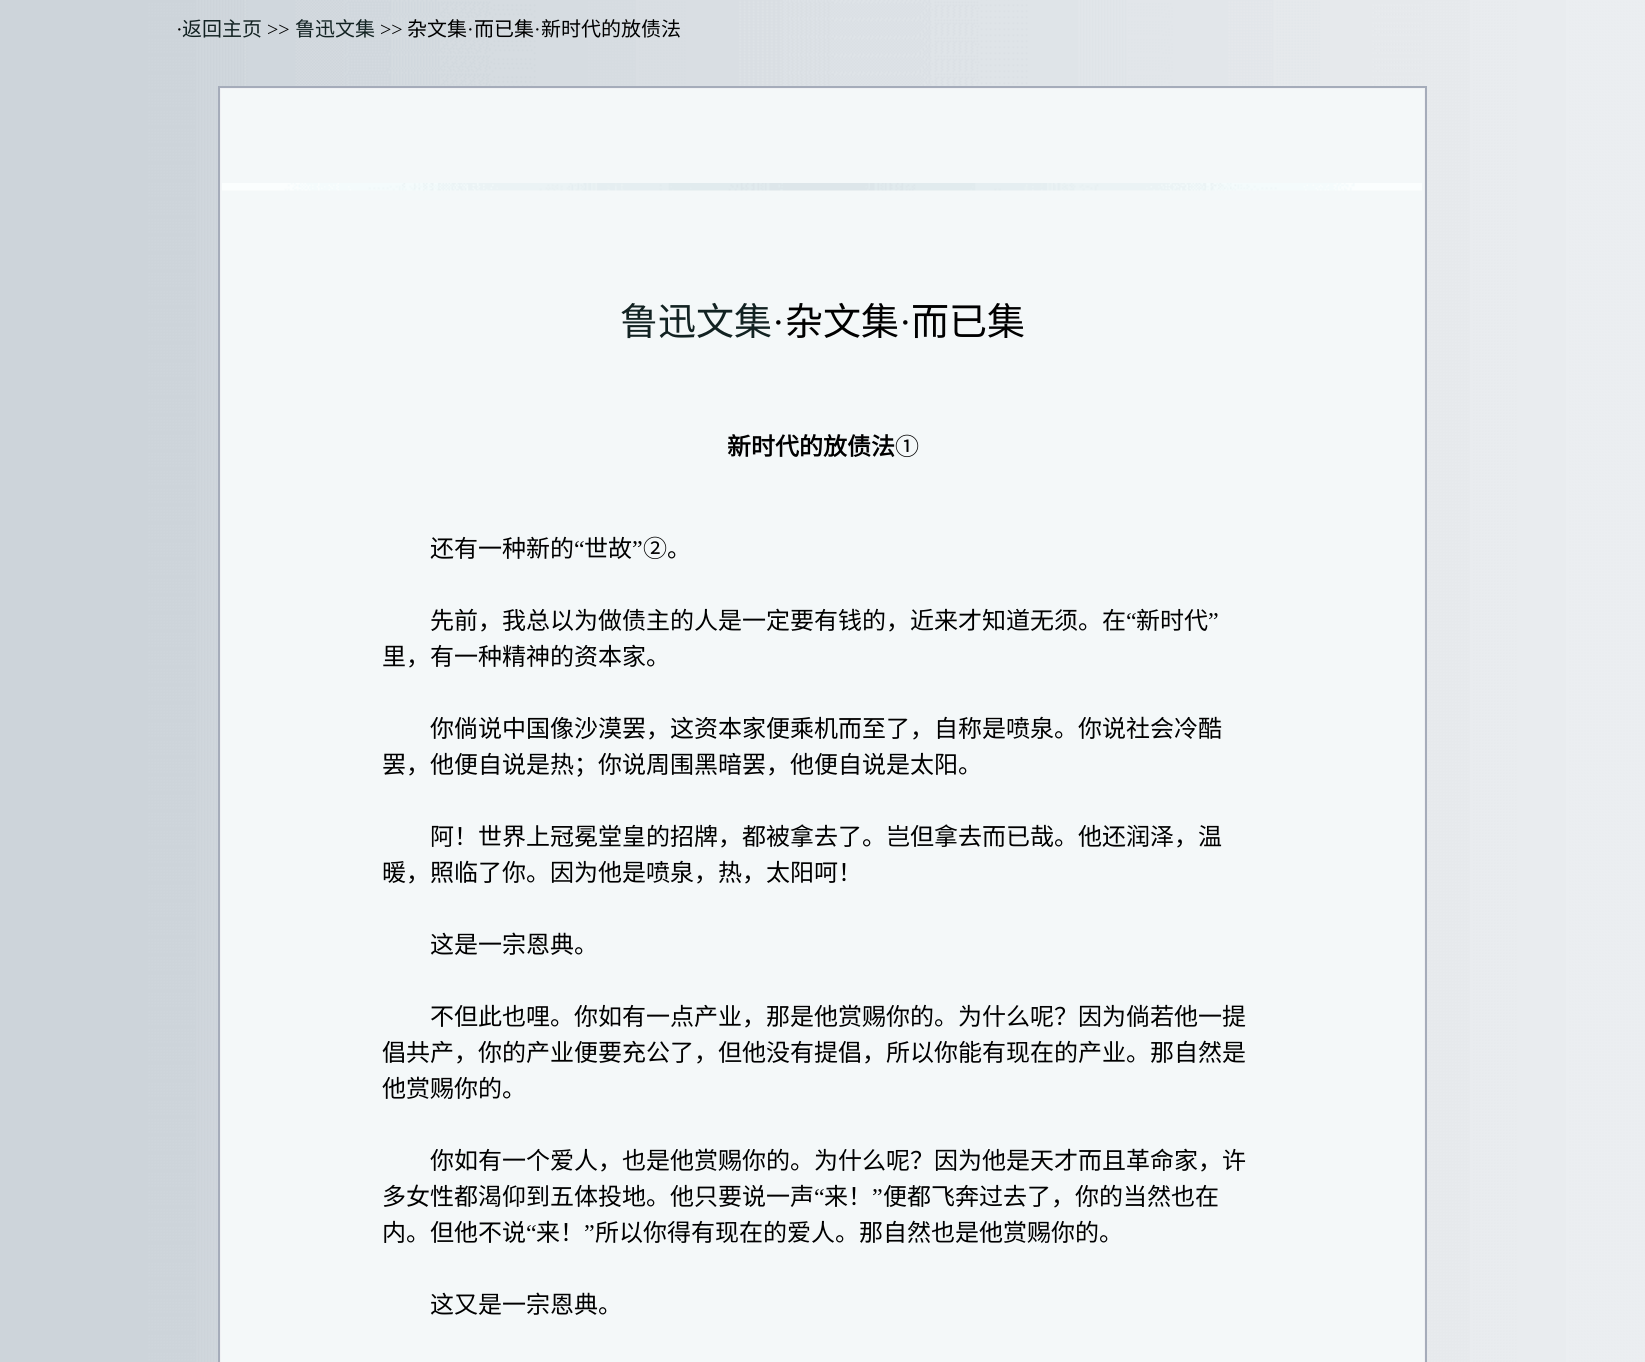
#include <cairo.h>
#include <math.h>
#include <stddef.h>


static void picture(cairo_t *cr, const char *path, double x, double y, double w, double h) {
    cairo_surface_t *image = cairo_image_surface_create_from_png(path);
    cairo_save(cr);
    cairo_set_source_surface(cr, image, x, y);
    cairo_rectangle(cr, x, y, w, h);
    cairo_fill(cr);
    cairo_restore(cr);
    cairo_surface_destroy(image);
}

int main(void) {
    cairo_surface_t *surface = cairo_image_surface_create(CAIRO_FORMAT_RGB24, 1645, 1362);
    cairo_t *cr = cairo_create(surface);
    cairo_font_options_t *options = cairo_font_options_create();
    cairo_font_options_set_hint_metrics(options, CAIRO_HINT_METRICS_OFF);
    cairo_font_options_set_hint_style(options, CAIRO_HINT_STYLE_NONE);
    cairo_set_font_options(cr, options);
    cairo_set_miter_limit(cr, 4);
    cairo_set_source_rgb(cr, 1, 1, 1);
    cairo_paint(cr);
    picture(cr, "img1.png", 0, 0, 1645, 1362);
    cairo_select_font_face(cr, "Liberation Serif", CAIRO_FONT_SLANT_NORMAL, CAIRO_FONT_WEIGHT_NORMAL);
    cairo_set_font_size(cr, 20);
    cairo_set_source_rgb(cr, 0, 0, 0);
    cairo_move_to(cr, 176, 36);
    cairo_show_text(cr, "·");
    cairo_select_font_face(cr, "Noto Sans CJK SC", CAIRO_FONT_SLANT_NORMAL, CAIRO_FONT_WEIGHT_NORMAL);
    cairo_set_source_rgb(cr, 0.071, 0.133, 0.133);
    cairo_move_to(cr, 182, 36);
    cairo_show_text(cr, "返回主页");
    cairo_select_font_face(cr, "Liberation Serif", CAIRO_FONT_SLANT_NORMAL, CAIRO_FONT_WEIGHT_NORMAL);
    cairo_set_source_rgb(cr, 0, 0, 0);
    cairo_move_to(cr, 267, 36);
    cairo_show_text(cr, ">>");
    cairo_select_font_face(cr, "Noto Sans CJK SC", CAIRO_FONT_SLANT_NORMAL, CAIRO_FONT_WEIGHT_NORMAL);
    cairo_set_source_rgb(cr, 0.071, 0.133, 0.133);
    cairo_move_to(cr, 295, 36);
    cairo_show_text(cr, "鲁迅文集");
    cairo_select_font_face(cr, "Liberation Serif", CAIRO_FONT_SLANT_NORMAL, CAIRO_FONT_WEIGHT_NORMAL);
    cairo_set_source_rgb(cr, 0, 0, 0);
    cairo_move_to(cr, 380, 36);
    cairo_show_text(cr, ">>");
    cairo_select_font_face(cr, "Noto Sans CJK SC", CAIRO_FONT_SLANT_NORMAL, CAIRO_FONT_WEIGHT_NORMAL);
    cairo_move_to(cr, 407, 36);
    cairo_show_text(cr, "杂文集");
    cairo_select_font_face(cr, "Liberation Serif", CAIRO_FONT_SLANT_NORMAL, CAIRO_FONT_WEIGHT_NORMAL);
    cairo_move_to(cr, 467, 36);
    cairo_show_text(cr, "·");
    cairo_select_font_face(cr, "Noto Sans CJK SC", CAIRO_FONT_SLANT_NORMAL, CAIRO_FONT_WEIGHT_NORMAL);
    cairo_move_to(cr, 474, 36);
    cairo_show_text(cr, "而已集");
    cairo_select_font_face(cr, "Liberation Serif", CAIRO_FONT_SLANT_NORMAL, CAIRO_FONT_WEIGHT_NORMAL);
    cairo_move_to(cr, 534, 36);
    cairo_show_text(cr, "·");
    cairo_select_font_face(cr, "Noto Sans CJK SC", CAIRO_FONT_SLANT_NORMAL, CAIRO_FONT_WEIGHT_NORMAL);
    cairo_move_to(cr, 541, 36);
    cairo_show_text(cr, "新时代的放债法");
    cairo_set_source_rgb(cr, 0.941, 0.945, 0.957);
    cairo_rectangle(cr, 220, 88, 1205, 1274);
    cairo_fill(cr);
    cairo_set_source_rgb(cr, 0.647, 0.675, 0.729);
    cairo_rectangle(cr, 218, 86, 1209, 2);
    cairo_fill(cr);
    cairo_rectangle(cr, 1425, 86, 2, 1276);
    cairo_fill(cr);
    cairo_rectangle(cr, 218, 86, 2, 1276);
    cairo_fill(cr);
    cairo_set_source_rgb(cr, 0.957, 0.969, 0.976);
    cairo_rectangle(cr, 221, 89, 1203, 1273);
    cairo_fill(cr);
    picture(cr, "img2.png", 222, 183, 1200, 8);
    cairo_set_font_size(cr, 38);
    cairo_set_source_rgb(cr, 0.071, 0.133, 0.133);
    cairo_move_to(cr, 620, 335);
    cairo_show_text(cr, "鲁迅文集");
    cairo_select_font_face(cr, "Liberation Serif", CAIRO_FONT_SLANT_NORMAL, CAIRO_FONT_WEIGHT_NORMAL);
    cairo_set_source_rgb(cr, 0, 0, 0);
    cairo_move_to(cr, 772, 335);
    cairo_show_text(cr, "·");
    cairo_select_font_face(cr, "Noto Sans CJK SC", CAIRO_FONT_SLANT_NORMAL, CAIRO_FONT_WEIGHT_NORMAL);
    cairo_move_to(cr, 785, 335);
    cairo_show_text(cr, "杂文集");
    cairo_select_font_face(cr, "Liberation Serif", CAIRO_FONT_SLANT_NORMAL, CAIRO_FONT_WEIGHT_NORMAL);
    cairo_move_to(cr, 899, 335);
    cairo_show_text(cr, "·");
    cairo_select_font_face(cr, "Noto Sans CJK SC", CAIRO_FONT_SLANT_NORMAL, CAIRO_FONT_WEIGHT_NORMAL);
    cairo_move_to(cr, 911, 335);
    cairo_show_text(cr, "而已集");
    cairo_select_font_face(cr, "Noto Sans CJK SC", CAIRO_FONT_SLANT_NORMAL, CAIRO_FONT_WEIGHT_BOLD);
    cairo_set_font_size(cr, 24);
    cairo_move_to(cr, 727, 455);
    cairo_show_text(cr, "新时代的放债法");
    cairo_select_font_face(cr, "Noto Sans CJK SC", CAIRO_FONT_SLANT_NORMAL, CAIRO_FONT_WEIGHT_NORMAL);
    cairo_move_to(cr, 895, 455);
    cairo_show_text(cr, "①");
    cairo_move_to(cr, 430, 557);
    cairo_show_text(cr, "还有一种新的");
    cairo_select_font_face(cr, "Liberation Serif", CAIRO_FONT_SLANT_NORMAL, CAIRO_FONT_WEIGHT_NORMAL);
    cairo_move_to(cr, 574, 557);
    cairo_show_text(cr, "“");
    cairo_select_font_face(cr, "Noto Sans CJK SC", CAIRO_FONT_SLANT_NORMAL, CAIRO_FONT_WEIGHT_NORMAL);
    cairo_move_to(cr, 584, 557);
    cairo_show_text(cr, "世故");
    cairo_select_font_face(cr, "Liberation Serif", CAIRO_FONT_SLANT_NORMAL, CAIRO_FONT_WEIGHT_NORMAL);
    cairo_move_to(cr, 632, 557);
    cairo_show_text(cr, "”");
    cairo_select_font_face(cr, "Noto Sans CJK SC", CAIRO_FONT_SLANT_NORMAL, CAIRO_FONT_WEIGHT_NORMAL);
    cairo_move_to(cr, 643, 557);
    cairo_show_text(cr, "②。");
    cairo_move_to(cr, 430, 629);
    cairo_show_text(cr, "先前，我总以为做债主的人是一定要有钱的，近来才知道无须。在");
    cairo_select_font_face(cr, "Liberation Serif", CAIRO_FONT_SLANT_NORMAL, CAIRO_FONT_WEIGHT_NORMAL);
    cairo_move_to(cr, 1126, 629);
    cairo_show_text(cr, "“");
    cairo_select_font_face(cr, "Noto Sans CJK SC", CAIRO_FONT_SLANT_NORMAL, CAIRO_FONT_WEIGHT_NORMAL);
    cairo_move_to(cr, 1136, 629);
    cairo_show_text(cr, "新时代");
    cairo_select_font_face(cr, "Liberation Serif", CAIRO_FONT_SLANT_NORMAL, CAIRO_FONT_WEIGHT_NORMAL);
    cairo_move_to(cr, 1208, 629);
    cairo_show_text(cr, "”");
    cairo_select_font_face(cr, "Noto Sans CJK SC", CAIRO_FONT_SLANT_NORMAL, CAIRO_FONT_WEIGHT_NORMAL);
    cairo_move_to(cr, 382, 665);
    cairo_show_text(cr, "里，有一种精神的资本家。");
    cairo_move_to(cr, 430, 737);
    cairo_show_text(cr, "你倘说中国像沙漠罢，这资本家便乘机而至了，自称是喷泉。你说社会冷酷");
    cairo_move_to(cr, 382, 773);
    cairo_show_text(cr, "罢，他便自说是热；你说周围黑暗罢，他便自说是太阳。");
    cairo_move_to(cr, 430, 845);
    cairo_show_text(cr, "阿！世界上冠冕堂皇的招牌，都被拿去了。岂但拿去而已哉。他还润泽，温");
    cairo_move_to(cr, 382, 881);
    cairo_show_text(cr, "暖，照临了你。因为他是喷泉，热，太阳呵！");
    cairo_move_to(cr, 430, 953);
    cairo_show_text(cr, "这是一宗恩典。");
    cairo_move_to(cr, 430, 1025);
    cairo_show_text(cr, "不但此也哩。你如有一点产业，那是他赏赐你的。为什么呢？因为倘若他一提");
    cairo_move_to(cr, 382, 1061);
    cairo_show_text(cr, "倡共产，你的产业便要充公了，但他没有提倡，所以你能有现在的产业。那自然是");
    cairo_move_to(cr, 382, 1097);
    cairo_show_text(cr, "他赏赐你的。");
    cairo_move_to(cr, 430, 1169);
    cairo_show_text(cr, "你如有一个爱人，也是他赏赐你的。为什么呢？因为他是天才而且革命家，许");
    cairo_move_to(cr, 382, 1205);
    cairo_show_text(cr, "多女性都渴仰到五体投地。他只要说一声");
    cairo_select_font_face(cr, "Liberation Serif", CAIRO_FONT_SLANT_NORMAL, CAIRO_FONT_WEIGHT_NORMAL);
    cairo_move_to(cr, 814, 1205);
    cairo_show_text(cr, "“");
    cairo_select_font_face(cr, "Noto Sans CJK SC", CAIRO_FONT_SLANT_NORMAL, CAIRO_FONT_WEIGHT_NORMAL);
    cairo_move_to(cr, 824, 1205);
    cairo_show_text(cr, "来！");
    cairo_select_font_face(cr, "Liberation Serif", CAIRO_FONT_SLANT_NORMAL, CAIRO_FONT_WEIGHT_NORMAL);
    cairo_move_to(cr, 872, 1205);
    cairo_show_text(cr, "”");
    cairo_select_font_face(cr, "Noto Sans CJK SC", CAIRO_FONT_SLANT_NORMAL, CAIRO_FONT_WEIGHT_NORMAL);
    cairo_move_to(cr, 883, 1205);
    cairo_show_text(cr, "便都飞奔过去了，你的当然也在");
    cairo_move_to(cr, 382, 1241);
    cairo_show_text(cr, "内。但他不说");
    cairo_select_font_face(cr, "Liberation Serif", CAIRO_FONT_SLANT_NORMAL, CAIRO_FONT_WEIGHT_NORMAL);
    cairo_move_to(cr, 526, 1241);
    cairo_show_text(cr, "“");
    cairo_select_font_face(cr, "Noto Sans CJK SC", CAIRO_FONT_SLANT_NORMAL, CAIRO_FONT_WEIGHT_NORMAL);
    cairo_move_to(cr, 536, 1241);
    cairo_show_text(cr, "来！");
    cairo_select_font_face(cr, "Liberation Serif", CAIRO_FONT_SLANT_NORMAL, CAIRO_FONT_WEIGHT_NORMAL);
    cairo_move_to(cr, 584, 1241);
    cairo_show_text(cr, "”");
    cairo_select_font_face(cr, "Noto Sans CJK SC", CAIRO_FONT_SLANT_NORMAL, CAIRO_FONT_WEIGHT_NORMAL);
    cairo_move_to(cr, 595, 1241);
    cairo_show_text(cr, "所以你得有现在的爱人。那自然也是他赏赐你的。");
    cairo_move_to(cr, 430, 1313);
    cairo_show_text(cr, "这又是一宗恩典。");
    cairo_surface_write_to_png(surface, "page.png");
    cairo_font_options_destroy(options);
    cairo_destroy(cr);
    cairo_surface_destroy(surface);
    return 0;
}
